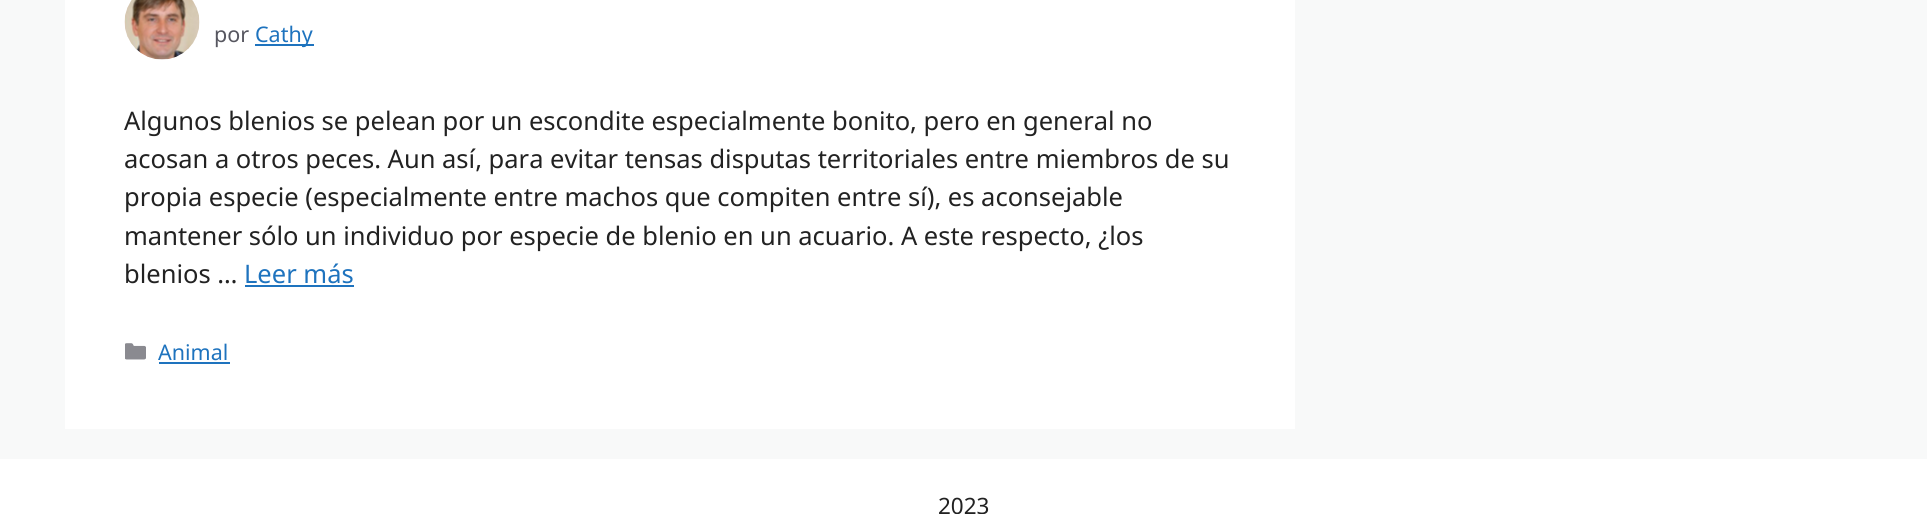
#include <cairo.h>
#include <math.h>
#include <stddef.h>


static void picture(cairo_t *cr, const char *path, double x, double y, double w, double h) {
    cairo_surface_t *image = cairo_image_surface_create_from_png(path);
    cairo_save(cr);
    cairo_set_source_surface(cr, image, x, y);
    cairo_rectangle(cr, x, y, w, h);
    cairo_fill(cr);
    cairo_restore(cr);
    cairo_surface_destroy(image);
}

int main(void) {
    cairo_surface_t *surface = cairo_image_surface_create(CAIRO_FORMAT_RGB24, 1927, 514);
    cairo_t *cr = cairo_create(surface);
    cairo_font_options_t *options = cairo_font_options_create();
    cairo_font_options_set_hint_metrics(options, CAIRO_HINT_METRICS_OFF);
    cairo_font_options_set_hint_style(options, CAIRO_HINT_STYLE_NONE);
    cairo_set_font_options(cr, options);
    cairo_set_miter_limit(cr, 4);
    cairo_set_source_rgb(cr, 0.969, 0.973, 0.976);
    cairo_paint(cr);
    cairo_set_source_rgb(cr, 1, 1, 1);
    cairo_rectangle(cr, 65, 0, 1230, 429);
    cairo_fill(cr);
    picture(cr, "img1.png", 124, 0, 76, 60);
    cairo_select_font_face(cr, "Noto Sans", CAIRO_FONT_SLANT_NORMAL, CAIRO_FONT_WEIGHT_NORMAL);
    cairo_set_font_size(cr, 21.5);
    cairo_set_source_rgb(cr, 0.341, 0.341, 0.376);
    cairo_move_to(cr, 214, 42);
    cairo_show_text(cr, "por");
    cairo_set_source_rgb(cr, 0.118, 0.451, 0.745);
    cairo_rectangle(cr, 255, 44, 59, 2);
    cairo_fill(cr);
    cairo_move_to(cr, 255, 42);
    cairo_show_text(cr, "Cathy");
    cairo_set_font_size(cr, 25.5);
    cairo_set_source_rgb(cr, 0.133, 0.133, 0.133);
    cairo_move_to(cr, 124, 130);
    cairo_show_text(cr, "Algunos blenios se pelean por un escondite especialmente bonito, pero en general no");
    cairo_move_to(cr, 124, 168);
    cairo_show_text(cr, "acosan a otros peces. Aun así, para evitar tensas disputas territoriales entre miembros de su");
    cairo_move_to(cr, 124, 206);
    cairo_show_text(cr, "propia especie (especialmente entre machos que compiten entre sí), es aconsejable");
    cairo_move_to(cr, 124, 245);
    cairo_show_text(cr, "mantener sólo un individuo por especie de blenio en un acuario. A este respecto, ¿los");
    cairo_move_to(cr, 124, 283);
    cairo_show_text(cr, "blenios …");
    cairo_set_source_rgb(cr, 0.118, 0.451, 0.745);
    cairo_move_to(cr, 244, 283);
    cairo_show_text(cr, "Leer más");
    cairo_rectangle(cr, 245, 285, 109, 2);
    cairo_fill(cr);
    picture(cr, "img2.png", 125, 343, 21, 17);
    cairo_set_font_size(cr, 21.5);
    cairo_move_to(cr, 158, 360);
    cairo_show_text(cr, "Animal");
    cairo_rectangle(cr, 159, 362, 71, 2);
    cairo_fill(cr);
    cairo_set_source_rgb(cr, 1, 1, 1);
    cairo_rectangle(cr, 0, 459, 1927, 55);
    cairo_fill(cr);
    cairo_set_font_size(cr, 22.5);
    cairo_set_source_rgb(cr, 0.133, 0.133, 0.133);
    cairo_move_to(cr, 938, 514);
    cairo_show_text(cr, "2023");
    cairo_surface_write_to_png(surface, "page.png");
    cairo_font_options_destroy(options);
    cairo_destroy(cr);
    cairo_surface_destroy(surface);
    return 0;
}
